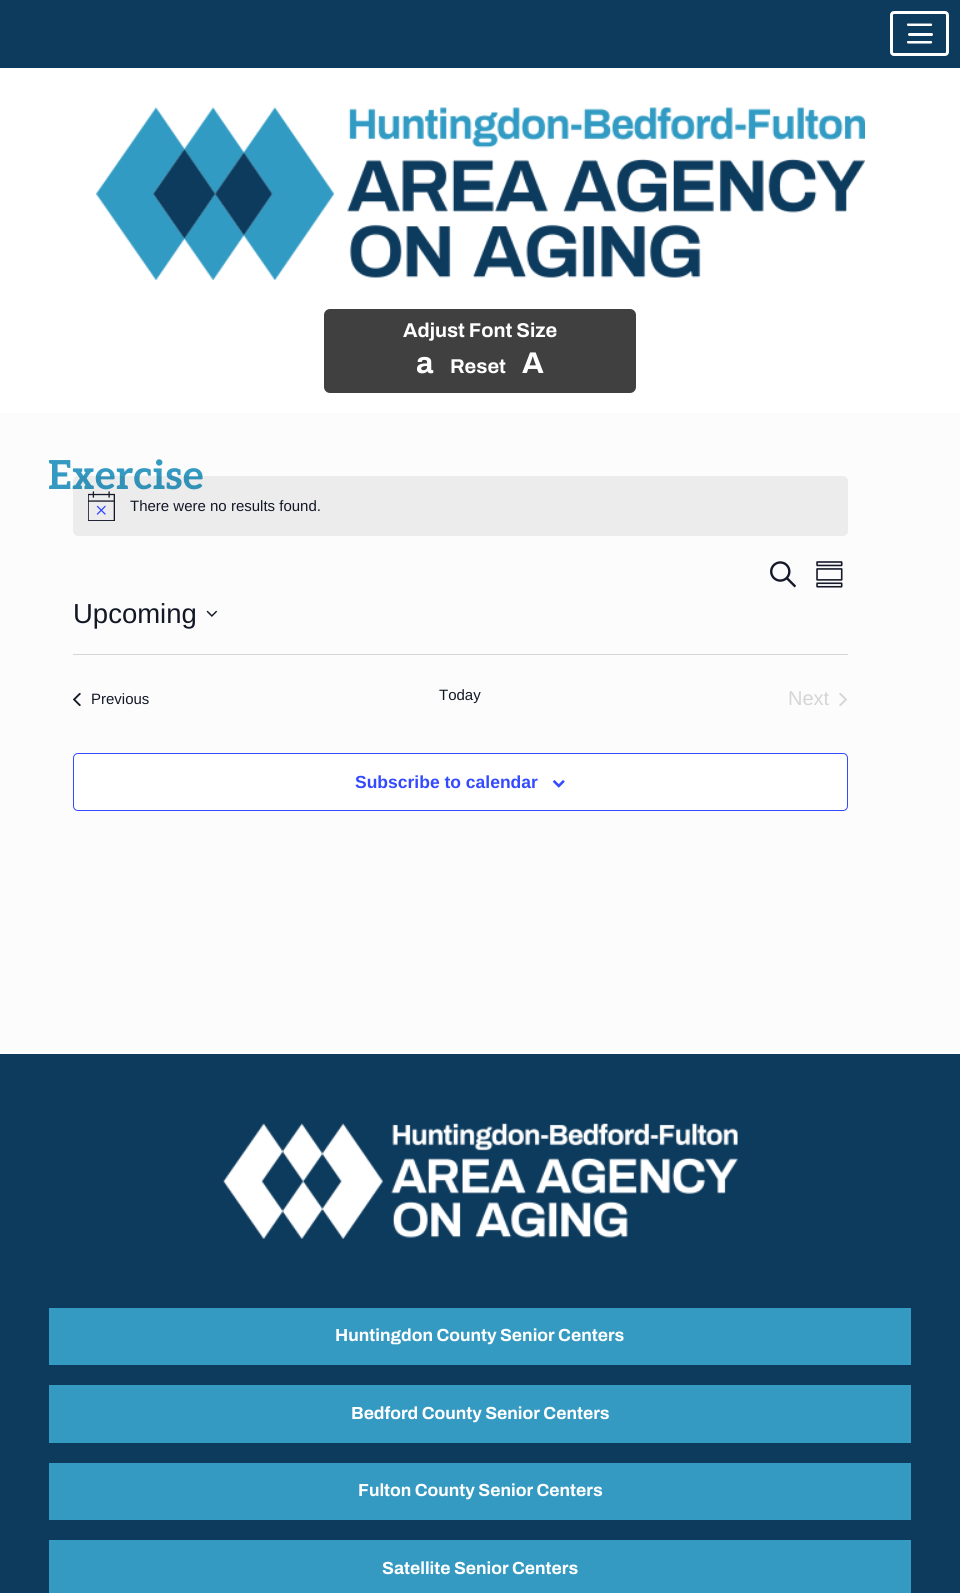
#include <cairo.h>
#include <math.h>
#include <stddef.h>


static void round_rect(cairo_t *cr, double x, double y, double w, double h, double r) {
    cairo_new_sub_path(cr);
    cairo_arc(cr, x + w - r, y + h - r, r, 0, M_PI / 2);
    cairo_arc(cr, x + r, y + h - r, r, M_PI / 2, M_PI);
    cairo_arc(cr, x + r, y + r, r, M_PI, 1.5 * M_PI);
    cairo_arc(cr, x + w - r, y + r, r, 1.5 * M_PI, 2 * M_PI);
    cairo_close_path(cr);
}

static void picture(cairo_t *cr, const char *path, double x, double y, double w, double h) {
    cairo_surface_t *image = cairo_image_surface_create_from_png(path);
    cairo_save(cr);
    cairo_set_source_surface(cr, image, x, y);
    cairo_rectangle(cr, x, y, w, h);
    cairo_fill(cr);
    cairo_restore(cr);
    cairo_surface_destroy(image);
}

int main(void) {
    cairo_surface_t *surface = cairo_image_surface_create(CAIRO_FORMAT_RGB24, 960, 1593);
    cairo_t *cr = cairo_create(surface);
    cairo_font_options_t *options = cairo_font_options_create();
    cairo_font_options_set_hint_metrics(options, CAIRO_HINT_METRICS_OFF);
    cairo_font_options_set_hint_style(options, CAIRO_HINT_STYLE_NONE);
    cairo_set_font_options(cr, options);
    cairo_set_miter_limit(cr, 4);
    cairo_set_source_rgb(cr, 1, 1, 1);
    cairo_paint(cr);
    cairo_set_source_rgb(cr, 0.051, 0.231, 0.365);
    cairo_rectangle(cr, 0, 0, 960, 68);
    cairo_fill(cr);
    round_rect(cr, 891.5, 12.5, 56, 42, 2.5);
    cairo_set_source_rgb(cr, 1, 1, 1);
    cairo_set_line_width(cr, 3);
    cairo_stroke(cr);
    cairo_new_path(cr);
    cairo_move_to(cr, 931, 26);
    cairo_line_to(cr, 908, 26);
    cairo_curve_to(cr, 907, 26, 906.5, 24, 907.5, 23.5);
    cairo_line_to(cr, 931, 23.5);
    cairo_curve_to(cr, 932.5, 23.5, 932.5, 26, 931, 26);
    cairo_close_path(cr);
    cairo_fill(cr);
    round_rect(cr, 908, 33, 25, 3, 1.5);
    cairo_fill(cr);
    cairo_new_path(cr);
    cairo_move_to(cr, 931, 43.5);
    cairo_line_to(cr, 908, 43.5);
    cairo_curve_to(cr, 907, 43.5, 906.5, 41.5, 907.5, 41);
    cairo_line_to(cr, 931, 41);
    cairo_curve_to(cr, 932.5, 41, 932.5, 43.5, 931, 43.5);
    cairo_close_path(cr);
    cairo_fill(cr);
    picture(cr, "img1.png", 96, 107, 769, 173);
    cairo_set_source_rgb(cr, 0.251, 0.251, 0.251);
    round_rect(cr, 324, 309, 312, 84, 6);
    cairo_fill(cr);
    cairo_select_font_face(cr, "Archivo", CAIRO_FONT_SLANT_NORMAL, CAIRO_FONT_WEIGHT_BOLD);
    cairo_set_font_size(cr, 20);
    cairo_set_source_rgb(cr, 1, 1, 1);
    cairo_move_to(cr, 403, 337);
    cairo_show_text(cr, "Adjust Font Size");
    cairo_set_font_size(cr, 30);
    cairo_move_to(cr, 416, 373);
    cairo_show_text(cr, "a");
    cairo_set_font_size(cr, 20);
    cairo_move_to(cr, 450, 373);
    cairo_show_text(cr, "Reset");
    cairo_set_font_size(cr, 30);
    cairo_move_to(cr, 522, 373);
    cairo_show_text(cr, "A");
    cairo_set_source_rgb(cr, 0.988, 0.988, 0.988);
    cairo_rectangle(cr, 0, 413, 960, 641);
    cairo_fill(cr);
    cairo_select_font_face(cr, "Aleo", CAIRO_FONT_SLANT_NORMAL, CAIRO_FONT_WEIGHT_BOLD);
    cairo_set_font_size(cr, 40);
    cairo_set_source_rgb(cr, 0.208, 0.604, 0.761);
    cairo_move_to(cr, 48, 489);
    cairo_show_text(cr, "Exercise");
    cairo_set_source_rgba(cr, 0.078, 0.094, 0.153, 0.07);
    round_rect(cr, 73, 476, 775, 60, 5);
    cairo_fill(cr);
    picture(cr, "img2.png", 88, 491, 27, 30);
    cairo_select_font_face(cr, "Liberation Sans", CAIRO_FONT_SLANT_NORMAL, CAIRO_FONT_WEIGHT_NORMAL);
    cairo_set_font_size(cr, 15);
    cairo_set_source_rgb(cr, 0.078, 0.094, 0.153);
    cairo_move_to(cr, 130, 511);
    cairo_show_text(cr, "There were no results found.");
    picture(cr, "img3.png", 770, 561, 26, 27);
    picture(cr, "img4.png", 816, 561, 27, 27);
    cairo_set_font_size(cr, 27.5);
    cairo_move_to(cr, 73, 623);
    cairo_show_text(cr, "Upcoming");
    picture(cr, "img5.png", 206, 610, 12, 7);
    cairo_set_source_rgb(cr, 0.835, 0.835, 0.835);
    cairo_rectangle(cr, 73, 654, 775, 1);
    cairo_fill(cr);
    picture(cr, "img6.png", 73, 693, 8, 13);
    cairo_set_font_size(cr, 15);
    cairo_set_source_rgb(cr, 0.078, 0.094, 0.153);
    cairo_move_to(cr, 91, 704);
    cairo_show_text(cr, "Previous");
    cairo_move_to(cr, 439, 700);
    cairo_show_text(cr, "Today");
    cairo_set_font_size(cr, 20);
    cairo_set_source_rgb(cr, 0.835, 0.835, 0.835);
    cairo_move_to(cr, 788, 705);
    cairo_show_text(cr, "Next");
    picture(cr, "img7.png", 839, 693, 8, 13);
    cairo_set_source_rgb(cr, 1, 1, 1);
    round_rect(cr, 73.5, 753.5, 774, 57, 4.5);
    cairo_fill_preserve(cr);
    cairo_set_source_rgb(cr, 0.2, 0.29, 1);
    cairo_set_line_width(cr, 1);
    cairo_stroke(cr);
    cairo_select_font_face(cr, "Liberation Sans", CAIRO_FONT_SLANT_NORMAL, CAIRO_FONT_WEIGHT_BOLD);
    cairo_set_font_size(cr, 17.5);
    cairo_move_to(cr, 355, 788);
    cairo_show_text(cr, "Subscribe to calendar");
    picture(cr, "img8.png", 553, 780, 12, 8);
    cairo_set_source_rgb(cr, 0.051, 0.231, 0.365);
    cairo_rectangle(cr, 0, 1054, 960, 539);
    cairo_fill(cr);
    picture(cr, "img9.png", 223, 1123, 515, 116);
    cairo_set_source_rgb(cr, 0.208, 0.604, 0.761);
    cairo_rectangle(cr, 49, 1308, 862, 57);
    cairo_fill(cr);
    cairo_select_font_face(cr, "Archivo", CAIRO_FONT_SLANT_NORMAL, CAIRO_FONT_WEIGHT_BOLD);
    cairo_set_source_rgb(cr, 1, 1, 1);
    cairo_move_to(cr, 335, 1341);
    cairo_show_text(cr, "Huntingdon County Senior Centers");
    cairo_set_source_rgb(cr, 0.208, 0.604, 0.761);
    cairo_rectangle(cr, 49, 1385, 862, 58);
    cairo_fill(cr);
    cairo_set_source_rgb(cr, 1, 1, 1);
    cairo_move_to(cr, 351, 1419);
    cairo_show_text(cr, "Bedford County Senior Centers");
    cairo_set_source_rgb(cr, 0.208, 0.604, 0.761);
    cairo_rectangle(cr, 49, 1463, 862, 57);
    cairo_fill(cr);
    cairo_set_source_rgb(cr, 1, 1, 1);
    cairo_move_to(cr, 358, 1496);
    cairo_show_text(cr, "Fulton County Senior Centers");
    cairo_set_source_rgb(cr, 0.208, 0.604, 0.761);
    cairo_rectangle(cr, 49, 1540, 862, 53);
    cairo_fill(cr);
    cairo_set_source_rgb(cr, 1, 1, 1);
    cairo_move_to(cr, 382, 1574);
    cairo_show_text(cr, "Satellite Senior Centers");
    cairo_surface_write_to_png(surface, "page.png");
    cairo_font_options_destroy(options);
    cairo_destroy(cr);
    cairo_surface_destroy(surface);
    return 0;
}
